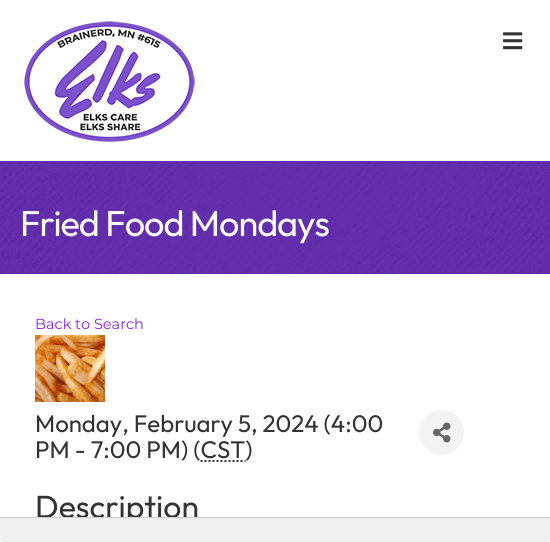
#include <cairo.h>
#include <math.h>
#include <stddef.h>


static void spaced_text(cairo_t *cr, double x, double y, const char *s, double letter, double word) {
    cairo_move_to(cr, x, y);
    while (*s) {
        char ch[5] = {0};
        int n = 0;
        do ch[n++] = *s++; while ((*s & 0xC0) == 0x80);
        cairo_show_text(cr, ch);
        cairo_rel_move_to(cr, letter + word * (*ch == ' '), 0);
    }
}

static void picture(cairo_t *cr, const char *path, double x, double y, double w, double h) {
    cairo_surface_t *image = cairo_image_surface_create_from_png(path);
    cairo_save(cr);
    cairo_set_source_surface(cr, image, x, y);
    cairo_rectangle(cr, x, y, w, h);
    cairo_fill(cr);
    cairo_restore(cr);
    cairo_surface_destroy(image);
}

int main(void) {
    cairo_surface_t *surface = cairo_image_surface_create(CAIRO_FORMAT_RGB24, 550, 542);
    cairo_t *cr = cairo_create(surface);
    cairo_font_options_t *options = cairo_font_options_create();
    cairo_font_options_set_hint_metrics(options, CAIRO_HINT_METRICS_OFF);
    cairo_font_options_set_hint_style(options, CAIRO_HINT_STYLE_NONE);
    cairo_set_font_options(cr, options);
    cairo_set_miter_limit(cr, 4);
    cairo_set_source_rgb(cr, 1, 1, 1);
    cairo_paint(cr);
    picture(cr, "img1.png", 24, 21, 171, 121);
    picture(cr, "img2.png", 503, 32, 20, 18);
    picture(cr, "img3.png", 0, 161, 550, 113);
    cairo_select_font_face(cr, "Outfit Thin", CAIRO_FONT_SLANT_NORMAL, CAIRO_FONT_WEIGHT_NORMAL);
    cairo_set_font_size(cr, 36);
    cairo_set_source_rgb(cr, 1, 1, 1);
    spaced_text(cr, 20, 236, "Fried Food Mondays", -1, 0);
    cairo_select_font_face(cr, "Montserrat", CAIRO_FONT_SLANT_NORMAL, CAIRO_FONT_WEIGHT_NORMAL);
    cairo_set_font_size(cr, 14.5);
    cairo_set_source_rgb(cr, 0.51, 0.141, 0.89);
    cairo_move_to(cr, 35, 329);
    cairo_show_text(cr, "Back to Search");
    picture(cr, "img4.png", 35, 335, 70, 67);
    cairo_select_font_face(cr, "Outfit Thin", CAIRO_FONT_SLANT_NORMAL, CAIRO_FONT_WEIGHT_NORMAL);
    cairo_set_font_size(cr, 24);
    cairo_set_source_rgb(cr, 0.2, 0.2, 0.2);
    cairo_move_to(cr, 35, 432);
    cairo_show_text(cr, "Monday, February 5, 2024 (4:00");
    cairo_move_to(cr, 35, 458);
    cairo_show_text(cr, "PM - 7:00 PM) (CST)");
    cairo_new_path(cr);
    cairo_move_to(cr, 200.5, 461);
    cairo_line_to(cr, 245.5, 461);
    cairo_set_dash(cr, (double[]){2, 2}, 2, 0);
    cairo_stroke(cr);
    cairo_set_source_rgb(cr, 0.953, 0.953, 0.953);
    cairo_arc(cr, 441.5, 432.5, 22.5, 0, 2 * M_PI);
    cairo_fill(cr);
    picture(cr, "img5.png", 433, 422, 18, 21);
    cairo_set_font_size(cr, 32);
    cairo_set_source_rgb(cr, 0.2, 0.2, 0.2);
    cairo_move_to(cr, 35, 518);
    cairo_show_text(cr, "Description");
    cairo_set_source_rgb(cr, 0.937, 0.937, 0.937);
    cairo_new_path(cr);
    cairo_move_to(cr, 0, 517);
    cairo_line_to(cr, 550, 517);
    cairo_line_to(cr, 550, 539);
    cairo_curve_to(cr, 550, 540.5, 548.5, 542, 547, 542);
    cairo_line_to(cr, 3, 542);
    cairo_curve_to(cr, 1.5, 542, 0, 540.5, 0, 539);
    cairo_close_path(cr);
    cairo_fill(cr);
    cairo_set_source_rgb(cr, 0.804, 0.804, 0.804);
    cairo_rectangle(cr, 0, 517, 550, 1);
    cairo_fill(cr);
    cairo_surface_write_to_png(surface, "page.png");
    cairo_font_options_destroy(options);
    cairo_destroy(cr);
    cairo_surface_destroy(surface);
    return 0;
}
